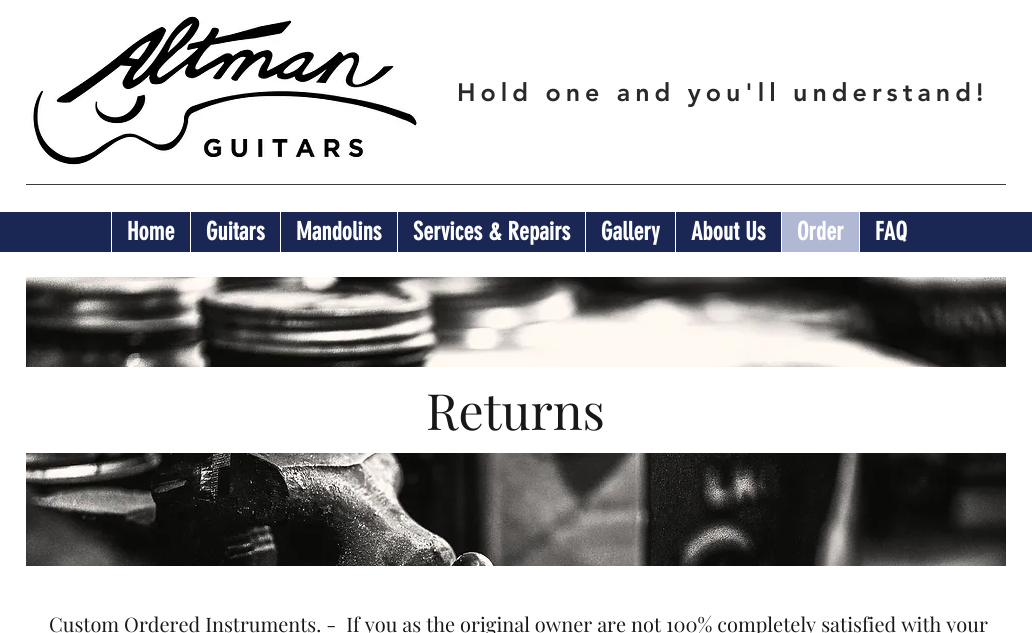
#include <cairo.h>
#include <math.h>
#include <stddef.h>


static void spaced_text(cairo_t *cr, double x, double y, const char *s, double letter, double word) {
    cairo_move_to(cr, x, y);
    while (*s) {
        char ch[5] = {0};
        int n = 0;
        do ch[n++] = *s++; while ((*s & 0xC0) == 0x80);
        cairo_show_text(cr, ch);
        cairo_rel_move_to(cr, letter + word * (*ch == ' '), 0);
    }
}

static void picture(cairo_t *cr, const char *path, double x, double y, double w, double h) {
    cairo_surface_t *image = cairo_image_surface_create_from_png(path);
    cairo_save(cr);
    cairo_set_source_surface(cr, image, x, y);
    cairo_rectangle(cr, x, y, w, h);
    cairo_fill(cr);
    cairo_restore(cr);
    cairo_surface_destroy(image);
}

int main(void) {
    cairo_surface_t *surface = cairo_image_surface_create(CAIRO_FORMAT_RGB24, 1032, 633);
    cairo_t *cr = cairo_create(surface);
    cairo_font_options_t *options = cairo_font_options_create();
    cairo_font_options_set_hint_metrics(options, CAIRO_HINT_METRICS_OFF);
    cairo_font_options_set_hint_style(options, CAIRO_HINT_STYLE_NONE);
    cairo_set_font_options(cr, options);
    cairo_set_miter_limit(cr, 4);
    cairo_set_source_rgb(cr, 1, 1, 1);
    cairo_paint(cr);
    picture(cr, "img1.png", 30, 16, 388, 151);
    cairo_select_font_face(cr, "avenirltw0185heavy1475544 Black", CAIRO_FONT_SLANT_NORMAL, CAIRO_FONT_WEIGHT_NORMAL);
    cairo_set_font_size(cr, 25);
    cairo_set_source_rgb(cr, 0.161, 0.161, 0.161);
    spaced_text(cr, 457, 101, "Hold one and you'll understand!", 5, 0);
    cairo_set_source_rgb(cr, 0.231, 0.231, 0.231);
    cairo_rectangle(cr, 26, 184, 980, 1);
    cairo_fill(cr);
    cairo_set_source_rgb(cr, 0.102, 0.153, 0.333);
    cairo_rectangle(cr, 0, 212, 1032, 40);
    cairo_fill(cr);
    cairo_set_source_rgb(cr, 1, 1, 1);
    cairo_rectangle(cr, 111, 212, 1, 40);
    cairo_fill(cr);
    cairo_select_font_face(cr, "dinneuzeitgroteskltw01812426", CAIRO_FONT_SLANT_NORMAL, CAIRO_FONT_WEIGHT_BOLD);
    cairo_set_source_rgb(cr, 0.992, 0.992, 0.992);
    cairo_move_to(cr, 127, 240);
    cairo_show_text(cr, "Home");
    cairo_set_source_rgb(cr, 1, 1, 1);
    cairo_rectangle(cr, 190, 212, 1, 40);
    cairo_fill(cr);
    cairo_set_source_rgb(cr, 0.992, 0.992, 0.992);
    cairo_move_to(cr, 206, 240);
    cairo_show_text(cr, "Guitars");
    cairo_set_source_rgb(cr, 1, 1, 1);
    cairo_rectangle(cr, 280, 212, 1, 40);
    cairo_fill(cr);
    cairo_set_source_rgb(cr, 0.992, 0.992, 0.992);
    cairo_move_to(cr, 296, 240);
    cairo_show_text(cr, "Mandolins");
    cairo_set_source_rgb(cr, 1, 1, 1);
    cairo_rectangle(cr, 397, 212, 1, 40);
    cairo_fill(cr);
    cairo_set_source_rgb(cr, 0.992, 0.992, 0.992);
    cairo_move_to(cr, 413, 240);
    cairo_show_text(cr, "Services & Repairs");
    cairo_set_source_rgb(cr, 1, 1, 1);
    cairo_rectangle(cr, 585, 212, 1, 40);
    cairo_fill(cr);
    cairo_set_source_rgb(cr, 0.992, 0.992, 0.992);
    cairo_move_to(cr, 601, 240);
    cairo_show_text(cr, "Gallery");
    cairo_set_source_rgb(cr, 1, 1, 1);
    cairo_rectangle(cr, 675, 212, 1, 40);
    cairo_fill(cr);
    cairo_set_source_rgb(cr, 0.992, 0.992, 0.992);
    cairo_move_to(cr, 691, 240);
    cairo_show_text(cr, "About Us");
    cairo_set_source_rgb(cr, 0.69, 0.722, 0.831);
    cairo_rectangle(cr, 782, 212, 77, 40);
    cairo_fill(cr);
    cairo_set_source_rgb(cr, 1, 1, 1);
    cairo_rectangle(cr, 781, 212, 1, 40);
    cairo_fill(cr);
    cairo_set_source_rgb(cr, 0.992, 0.992, 0.992);
    cairo_move_to(cr, 797, 240);
    cairo_show_text(cr, "Order");
    cairo_set_source_rgb(cr, 1, 1, 1);
    cairo_rectangle(cr, 859, 212, 1, 40);
    cairo_fill(cr);
    cairo_set_source_rgb(cr, 0.992, 0.992, 0.992);
    cairo_move_to(cr, 875, 240);
    cairo_show_text(cr, "FAQ");
    picture(cr, "img2.png", 26, 277, 980, 289);
    cairo_set_source_rgb(cr, 1, 1, 1);
    cairo_rectangle(cr, 26, 367, 980, 86);
    cairo_fill(cr);
    cairo_select_font_face(cr, "Playfair Display", CAIRO_FONT_SLANT_NORMAL, CAIRO_FONT_WEIGHT_NORMAL);
    cairo_set_font_size(cr, 50);
    cairo_set_source_rgb(cr, 0.094, 0.094, 0.094);
    cairo_move_to(cr, 426, 430);
    cairo_show_text(cr, "Returns");
    cairo_set_font_size(cr, 20);
    cairo_move_to(cr, 49, 632);
    cairo_show_text(cr, "Custom Ordered Instruments. -  If you as the original owner are not 100% completely satisfied with your");
    cairo_surface_write_to_png(surface, "page.png");
    cairo_font_options_destroy(options);
    cairo_destroy(cr);
    cairo_surface_destroy(surface);
    return 0;
}
